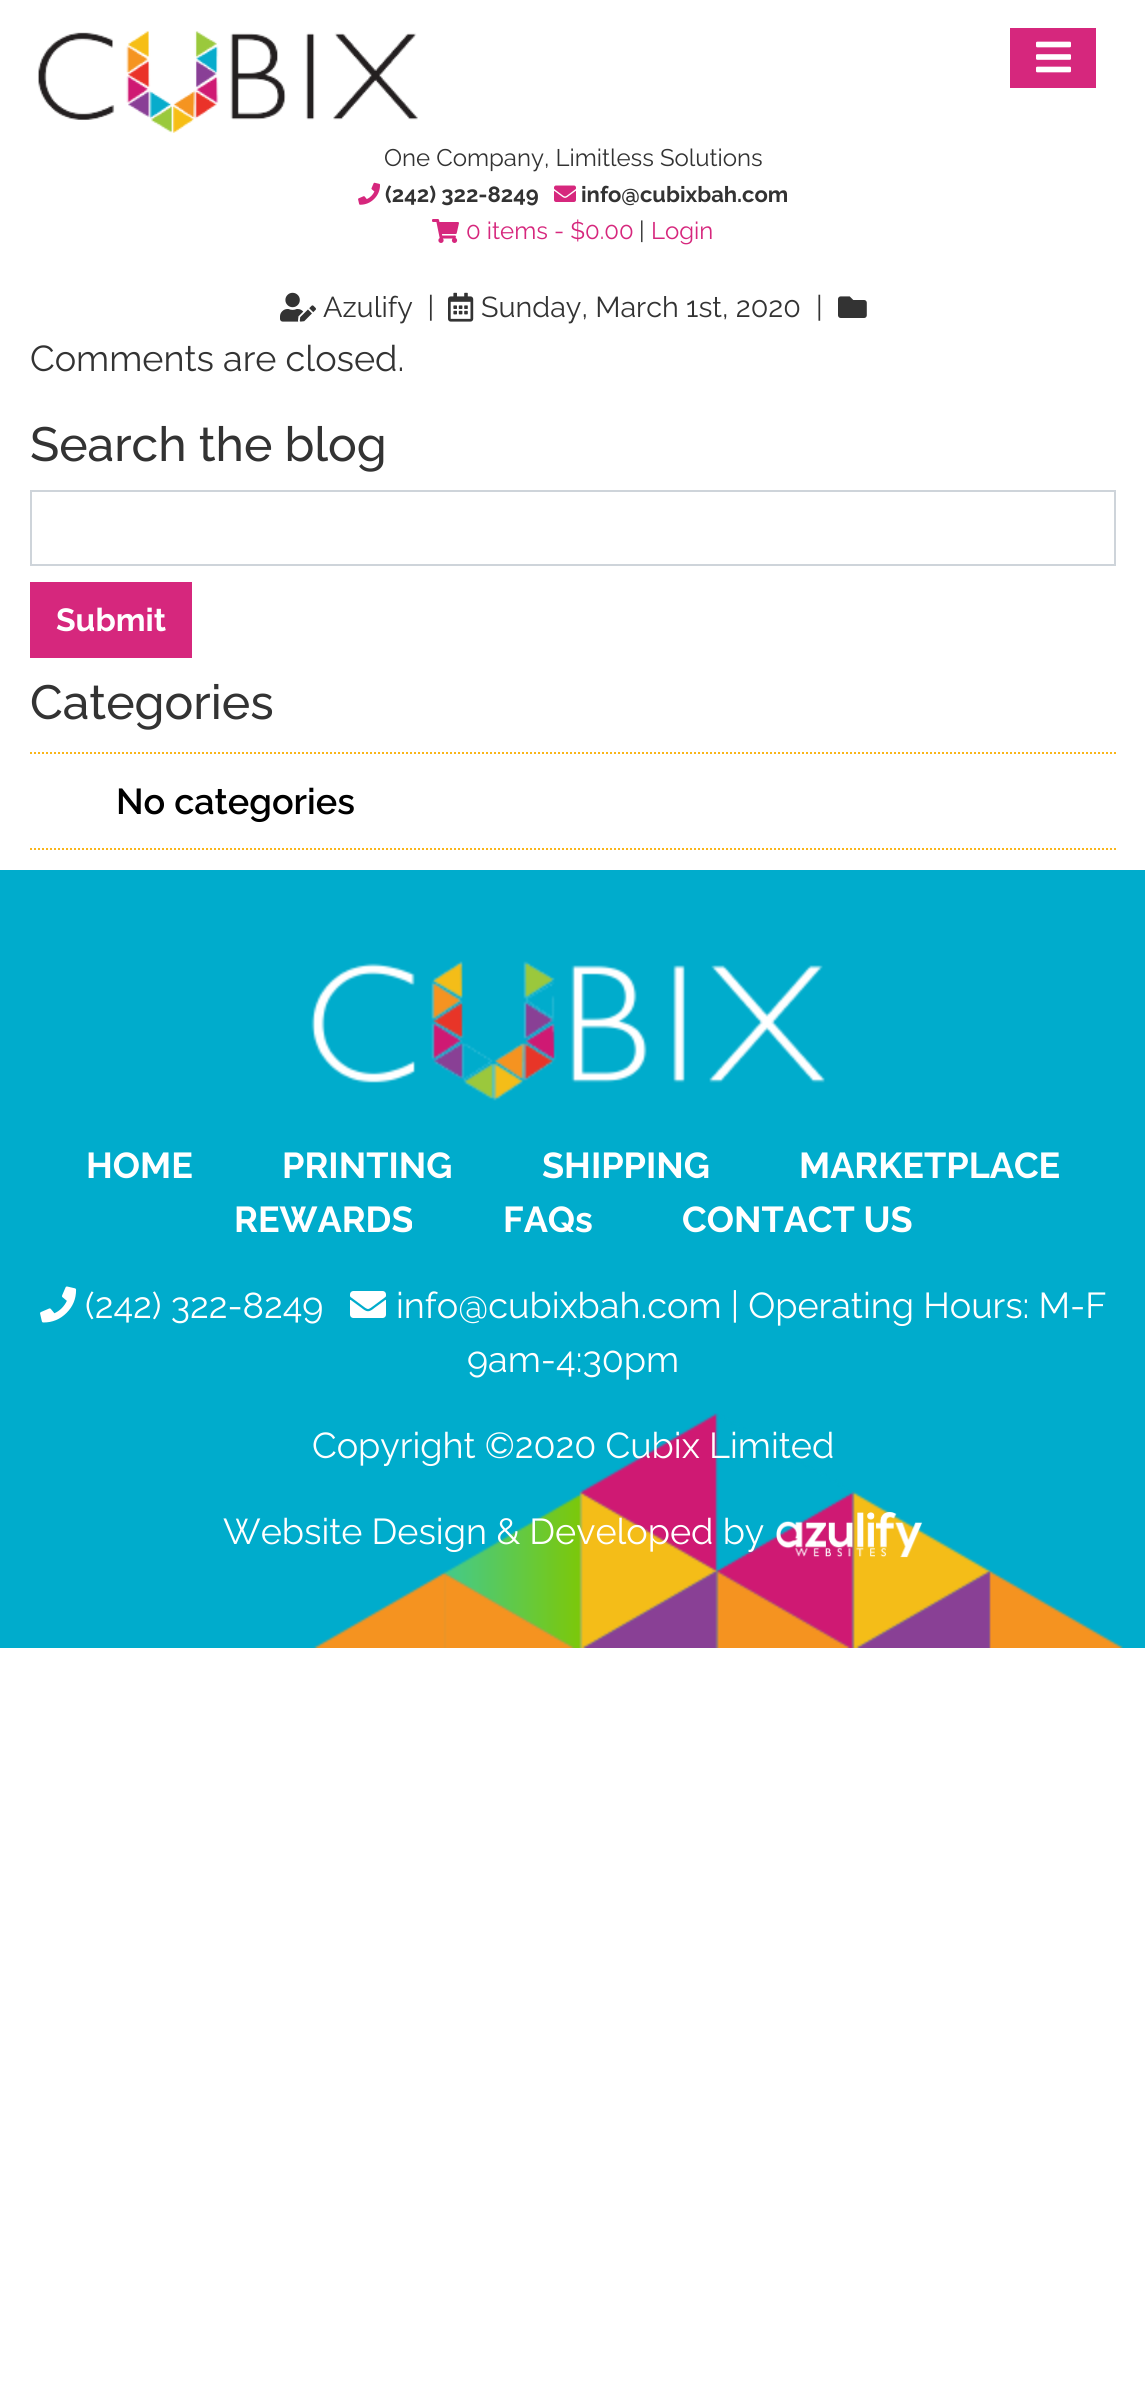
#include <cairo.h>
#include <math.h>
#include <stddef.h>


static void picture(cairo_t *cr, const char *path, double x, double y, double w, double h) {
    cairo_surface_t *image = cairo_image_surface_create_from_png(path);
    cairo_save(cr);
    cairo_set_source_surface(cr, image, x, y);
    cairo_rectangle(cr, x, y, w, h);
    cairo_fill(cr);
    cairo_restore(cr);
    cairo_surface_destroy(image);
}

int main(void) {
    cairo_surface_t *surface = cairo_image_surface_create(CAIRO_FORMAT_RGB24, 1145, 2397);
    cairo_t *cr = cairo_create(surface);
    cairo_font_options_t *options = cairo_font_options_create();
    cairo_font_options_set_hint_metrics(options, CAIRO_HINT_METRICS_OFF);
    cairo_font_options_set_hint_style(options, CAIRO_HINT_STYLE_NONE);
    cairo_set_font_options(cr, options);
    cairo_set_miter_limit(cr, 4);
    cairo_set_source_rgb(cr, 1, 1, 1);
    cairo_paint(cr);
    cairo_set_source_rgb(cr, 0.839, 0.153, 0.49);
    cairo_rectangle(cr, 1010, 28, 86, 60);
    cairo_fill(cr);
    picture(cr, "img1.png", 1036, 41, 35, 32);
    picture(cr, "img2.png", 37, 30, 381, 103);
    cairo_select_font_face(cr, "Raleway", CAIRO_FONT_SLANT_NORMAL, CAIRO_FONT_WEIGHT_NORMAL);
    cairo_set_font_size(cr, 24);
    cairo_set_source_rgb(cr, 0.2, 0.2, 0.2);
    cairo_move_to(cr, 384, 166);
    cairo_show_text(cr, "One Company, Limitless Solutions");
    picture(cr, "img3.png", 358, 182, 22, 23);
    cairo_select_font_face(cr, "Raleway", CAIRO_FONT_SLANT_NORMAL, CAIRO_FONT_WEIGHT_BOLD);
    cairo_set_font_size(cr, 22);
    cairo_move_to(cr, 385, 202);
    cairo_show_text(cr, "(242) 322-8249");
    picture(cr, "img4.png", 554, 185, 22, 17);
    cairo_move_to(cr, 581, 202);
    cairo_show_text(cr, "info@cubixbah.com");
    picture(cr, "img5.png", 432, 219, 27, 24);
    cairo_select_font_face(cr, "Raleway", CAIRO_FONT_SLANT_NORMAL, CAIRO_FONT_WEIGHT_NORMAL);
    cairo_set_font_size(cr, 24);
    cairo_set_source_rgb(cr, 0.839, 0.153, 0.49);
    cairo_move_to(cr, 466, 239);
    cairo_show_text(cr, "0 items - $0.00");
    cairo_set_source_rgb(cr, 0.2, 0.2, 0.2);
    cairo_move_to(cr, 639, 239);
    cairo_show_text(cr, "|");
    cairo_set_source_rgb(cr, 0.839, 0.153, 0.49);
    cairo_move_to(cr, 651, 239);
    cairo_show_text(cr, "Login");
    picture(cr, "img6.png", 280, 292, 36, 30);
    cairo_set_font_size(cr, 28.75);
    cairo_set_source_rgb(cr, 0.2, 0.2, 0.2);
    cairo_move_to(cr, 323, 317);
    cairo_show_text(cr, "Azulify  |");
    picture(cr, "img7.png", 448, 292, 26, 30);
    cairo_move_to(cr, 481, 317);
    cairo_show_text(cr, "Sunday, March 1st, 2020");
    cairo_move_to(cr, 816, 317);
    cairo_show_text(cr, "|");
    picture(cr, "img8.png", 838, 296, 29, 22);
    cairo_set_font_size(cr, 36);
    cairo_move_to(cr, 30, 371);
    cairo_show_text(cr, "Comments are closed.");
    cairo_select_font_face(cr, "Raleway Medium", CAIRO_FONT_SLANT_NORMAL, CAIRO_FONT_WEIGHT_NORMAL);
    cairo_set_font_size(cr, 48);
    cairo_move_to(cr, 30, 461);
    cairo_show_text(cr, "Search the blog");
    cairo_rectangle(cr, 31, 491, 1084, 74);
    cairo_set_source_rgb(cr, 0.808, 0.831, 0.855);
    cairo_stroke(cr);
    cairo_set_source_rgb(cr, 0.839, 0.153, 0.49);
    cairo_rectangle(cr, 30, 582, 162, 76);
    cairo_fill(cr);
    cairo_select_font_face(cr, "Raleway", CAIRO_FONT_SLANT_NORMAL, CAIRO_FONT_WEIGHT_BOLD);
    cairo_set_font_size(cr, 32);
    cairo_set_source_rgb(cr, 1, 1, 1);
    cairo_move_to(cr, 56, 631);
    cairo_show_text(cr, "Submit");
    cairo_select_font_face(cr, "Raleway Medium", CAIRO_FONT_SLANT_NORMAL, CAIRO_FONT_WEIGHT_NORMAL);
    cairo_set_font_size(cr, 48);
    cairo_set_source_rgb(cr, 0.2, 0.2, 0.2);
    cairo_move_to(cr, 30, 719);
    cairo_show_text(cr, "Categories");
    cairo_new_path(cr);
    cairo_move_to(cr, 30, 753);
    cairo_line_to(cr, 1116, 753);
    cairo_set_source_rgb(cr, 0.98, 0.714, 0.102);
    cairo_set_dash(cr, (double[]){2, 2}, 2, 0);
    cairo_stroke(cr);
    cairo_new_path(cr);
    cairo_move_to(cr, 30, 849);
    cairo_line_to(cr, 1116, 849);
    cairo_stroke(cr);
    cairo_select_font_face(cr, "Raleway SemiBold", CAIRO_FONT_SLANT_NORMAL, CAIRO_FONT_WEIGHT_NORMAL);
    cairo_set_font_size(cr, 36);
    cairo_set_source_rgb(cr, 0, 0, 0);
    cairo_move_to(cr, 116, 814);
    cairo_show_text(cr, "No categories");
    cairo_set_source_rgb(cr, 0, 0.675, 0.8);
    cairo_rectangle(cr, 0, 870, 1145, 778);
    cairo_fill(cr);
    picture(cr, "img9.png", 313, 1413, 810, 235);
    picture(cr, "img10.png", 311, 961, 514, 140);
    cairo_select_font_face(cr, "Raleway", CAIRO_FONT_SLANT_NORMAL, CAIRO_FONT_WEIGHT_BOLD);
    cairo_set_source_rgb(cr, 1, 1, 1);
    cairo_move_to(cr, 86, 1178);
    cairo_show_text(cr, "HOME");
    cairo_move_to(cr, 282, 1178);
    cairo_show_text(cr, "PRINTING");
    cairo_move_to(cr, 542, 1178);
    cairo_show_text(cr, "SHIPPING");
    cairo_move_to(cr, 799, 1178);
    cairo_show_text(cr, "MARKETPLACE");
    cairo_move_to(cr, 234, 1232);
    cairo_show_text(cr, "REWARDS");
    cairo_move_to(cr, 503, 1232);
    cairo_show_text(cr, "FAQs");
    cairo_move_to(cr, 682, 1232);
    cairo_show_text(cr, "CONTACT US");
    picture(cr, "img11.png", 40, 1286, 37, 37);
    cairo_select_font_face(cr, "Raleway", CAIRO_FONT_SLANT_NORMAL, CAIRO_FONT_WEIGHT_NORMAL);
    cairo_move_to(cr, 85, 1318);
    cairo_show_text(cr, "(242) 322-8249");
    picture(cr, "img12.png", 350, 1291, 36, 27);
    cairo_move_to(cr, 396, 1318);
    cairo_show_text(cr, "info@cubixbah.com | Operating Hours: M-F");
    cairo_move_to(cr, 467, 1372);
    cairo_show_text(cr, "9am-4:30pm");
    cairo_move_to(cr, 312, 1458);
    cairo_show_text(cr, "Copyright ©2020 Cubix Limited");
    cairo_move_to(cr, 223, 1544);
    cairo_show_text(cr, "Website Design & Developed by");
    picture(cr, "img13.png", 776, 1512, 147, 46);
    cairo_surface_write_to_png(surface, "page.png");
    cairo_font_options_destroy(options);
    cairo_destroy(cr);
    cairo_surface_destroy(surface);
    return 0;
}
